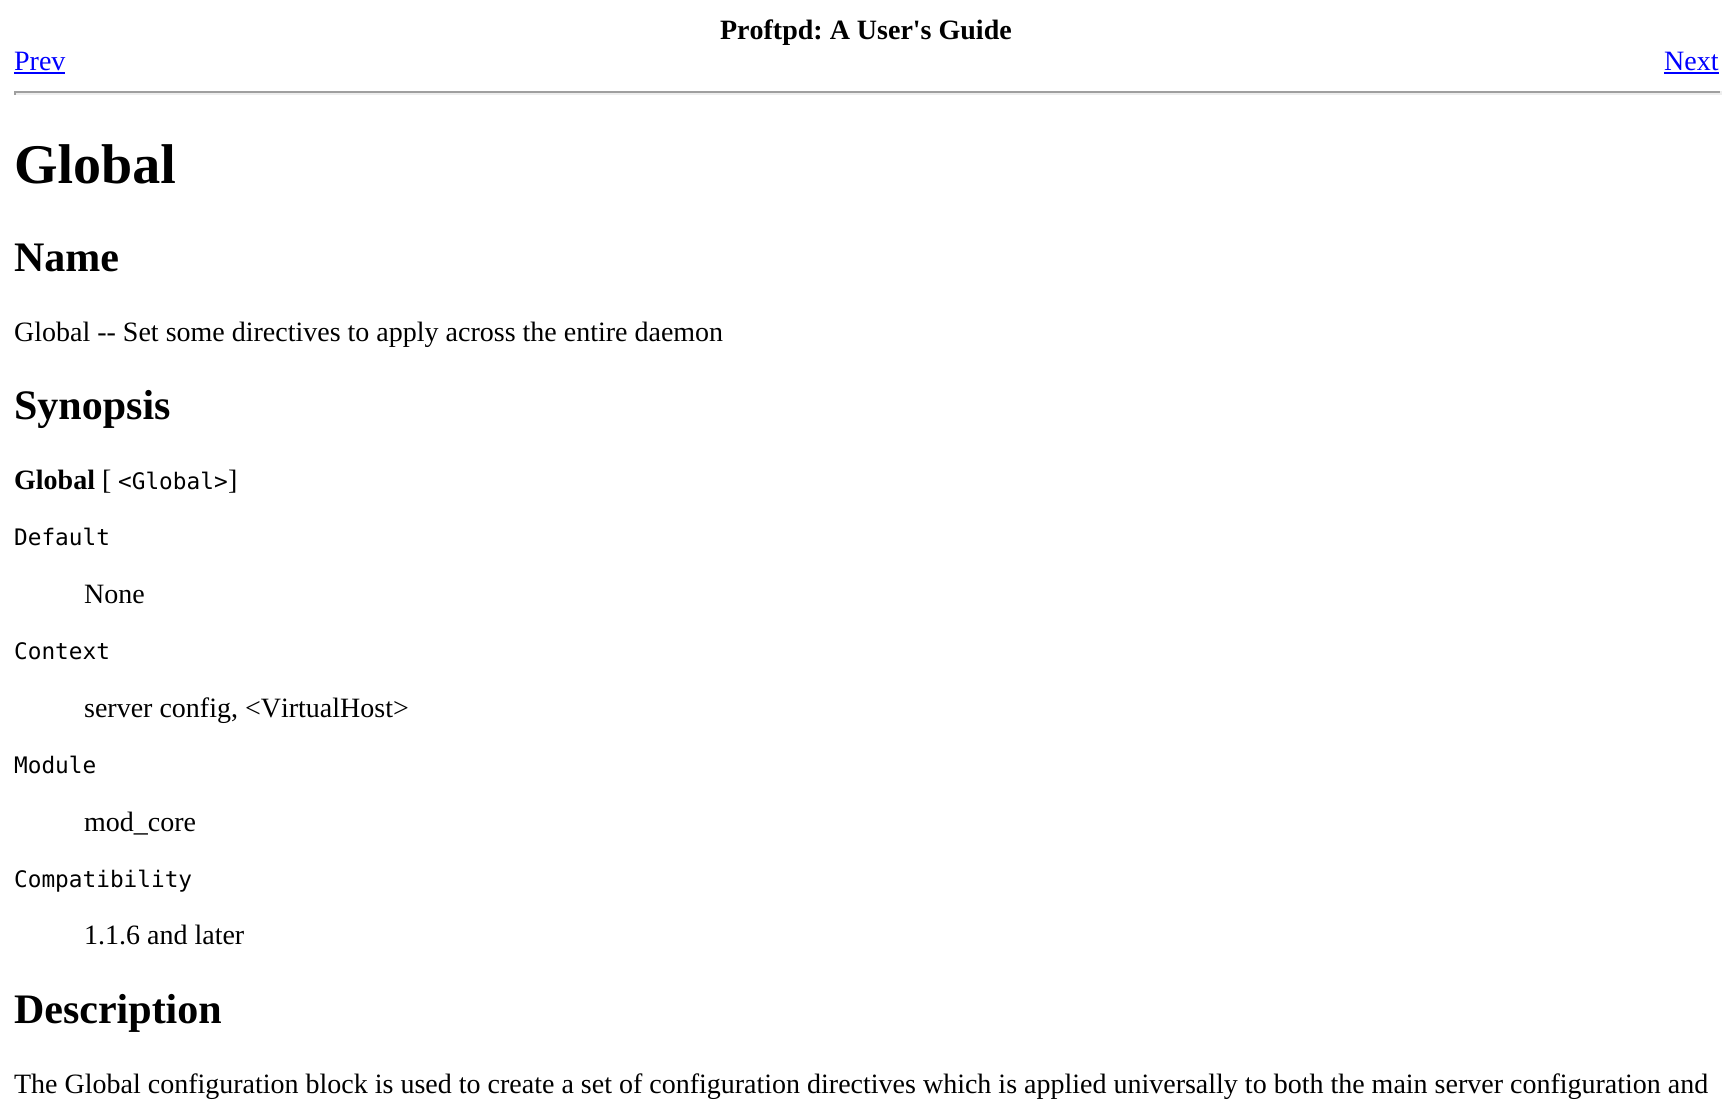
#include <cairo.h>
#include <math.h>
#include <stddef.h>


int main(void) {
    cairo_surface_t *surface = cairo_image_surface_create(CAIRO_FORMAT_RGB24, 1731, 1100);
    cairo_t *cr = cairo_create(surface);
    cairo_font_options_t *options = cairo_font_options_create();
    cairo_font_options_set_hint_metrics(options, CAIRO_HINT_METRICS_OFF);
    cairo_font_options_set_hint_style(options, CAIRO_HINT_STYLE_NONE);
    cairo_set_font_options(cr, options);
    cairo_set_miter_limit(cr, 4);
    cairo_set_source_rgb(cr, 1, 1, 1);
    cairo_paint(cr);
    cairo_select_font_face(cr, "Liberation Serif", CAIRO_FONT_SLANT_NORMAL, CAIRO_FONT_WEIGHT_BOLD);
    cairo_set_font_size(cr, 28);
    cairo_set_source_rgb(cr, 0, 0, 0);
    cairo_move_to(cr, 720, 39);
    cairo_show_text(cr, "Proftpd: A User's Guide");
    cairo_select_font_face(cr, "Liberation Serif", CAIRO_FONT_SLANT_NORMAL, CAIRO_FONT_WEIGHT_NORMAL);
    cairo_set_source_rgb(cr, 0, 0, 1);
    cairo_move_to(cr, 14, 70);
    cairo_show_text(cr, "Prev");
    cairo_rectangle(cr, 14, 72, 51, 2);
    cairo_fill(cr);
    cairo_move_to(cr, 1664, 70);
    cairo_show_text(cr, "Next");
    cairo_rectangle(cr, 1664, 72, 55, 2);
    cairo_fill(cr);
    cairo_set_source_rgb(cr, 0.624, 0.624, 0.624);
    cairo_rectangle(cr, 14, 91, 1708, 2);
    cairo_fill(cr);
    cairo_set_source_rgb(cr, 0.933, 0.933, 0.933);
    cairo_rectangle(cr, 1720, 91, 2, 4);
    cairo_fill(cr);
    cairo_rectangle(cr, 14, 93, 1708, 2);
    cairo_fill(cr);
    cairo_set_source_rgb(cr, 0.624, 0.624, 0.624);
    cairo_rectangle(cr, 14, 91, 2, 4);
    cairo_fill(cr);
    cairo_select_font_face(cr, "Liberation Serif", CAIRO_FONT_SLANT_NORMAL, CAIRO_FONT_WEIGHT_BOLD);
    cairo_set_font_size(cr, 56);
    cairo_set_source_rgb(cr, 0, 0, 0);
    cairo_move_to(cr, 14, 183);
    cairo_show_text(cr, "Global");
    cairo_set_font_size(cr, 42);
    cairo_move_to(cr, 14, 271);
    cairo_show_text(cr, "Name");
    cairo_select_font_face(cr, "Liberation Serif", CAIRO_FONT_SLANT_NORMAL, CAIRO_FONT_WEIGHT_NORMAL);
    cairo_set_font_size(cr, 28);
    cairo_move_to(cr, 14, 341);
    cairo_show_text(cr, "Global -- Set some directives to apply across the entire daemon");
    cairo_select_font_face(cr, "Liberation Serif", CAIRO_FONT_SLANT_NORMAL, CAIRO_FONT_WEIGHT_BOLD);
    cairo_set_font_size(cr, 42);
    cairo_move_to(cr, 14, 419);
    cairo_show_text(cr, "Synopsis");
    cairo_set_font_size(cr, 28);
    cairo_move_to(cr, 14, 489);
    cairo_show_text(cr, "Global");
    cairo_select_font_face(cr, "Liberation Serif", CAIRO_FONT_SLANT_NORMAL, CAIRO_FONT_WEIGHT_NORMAL);
    cairo_move_to(cr, 102, 489);
    cairo_show_text(cr, "[");
    cairo_select_font_face(cr, "DejaVu Sans Mono", CAIRO_FONT_SLANT_NORMAL, CAIRO_FONT_WEIGHT_NORMAL);
    cairo_set_font_size(cr, 22.75);
    cairo_move_to(cr, 118, 489);
    cairo_show_text(cr, "<Global>");
    cairo_select_font_face(cr, "Liberation Serif", CAIRO_FONT_SLANT_NORMAL, CAIRO_FONT_WEIGHT_NORMAL);
    cairo_set_font_size(cr, 28);
    cairo_move_to(cr, 228, 489);
    cairo_show_text(cr, "]");
    cairo_select_font_face(cr, "DejaVu Sans Mono", CAIRO_FONT_SLANT_NORMAL, CAIRO_FONT_WEIGHT_NORMAL);
    cairo_set_font_size(cr, 22.75);
    cairo_move_to(cr, 14, 545);
    cairo_show_text(cr, "Default");
    cairo_select_font_face(cr, "Liberation Serif", CAIRO_FONT_SLANT_NORMAL, CAIRO_FONT_WEIGHT_NORMAL);
    cairo_set_font_size(cr, 28);
    cairo_move_to(cr, 84, 603);
    cairo_show_text(cr, "None");
    cairo_select_font_face(cr, "DejaVu Sans Mono", CAIRO_FONT_SLANT_NORMAL, CAIRO_FONT_WEIGHT_NORMAL);
    cairo_set_font_size(cr, 22.75);
    cairo_move_to(cr, 14, 659);
    cairo_show_text(cr, "Context");
    cairo_select_font_face(cr, "Liberation Serif", CAIRO_FONT_SLANT_NORMAL, CAIRO_FONT_WEIGHT_NORMAL);
    cairo_set_font_size(cr, 28);
    cairo_move_to(cr, 84, 717);
    cairo_show_text(cr, "server config, <VirtualHost>");
    cairo_select_font_face(cr, "DejaVu Sans Mono", CAIRO_FONT_SLANT_NORMAL, CAIRO_FONT_WEIGHT_NORMAL);
    cairo_set_font_size(cr, 22.75);
    cairo_move_to(cr, 14, 773);
    cairo_show_text(cr, "Module");
    cairo_select_font_face(cr, "Liberation Serif", CAIRO_FONT_SLANT_NORMAL, CAIRO_FONT_WEIGHT_NORMAL);
    cairo_set_font_size(cr, 28);
    cairo_move_to(cr, 84, 831);
    cairo_show_text(cr, "mod_core");
    cairo_select_font_face(cr, "DejaVu Sans Mono", CAIRO_FONT_SLANT_NORMAL, CAIRO_FONT_WEIGHT_NORMAL);
    cairo_set_font_size(cr, 22.75);
    cairo_move_to(cr, 14, 887);
    cairo_show_text(cr, "Compatibility");
    cairo_select_font_face(cr, "Liberation Serif", CAIRO_FONT_SLANT_NORMAL, CAIRO_FONT_WEIGHT_NORMAL);
    cairo_set_font_size(cr, 28);
    cairo_move_to(cr, 84, 944);
    cairo_show_text(cr, "1.1.6 and later");
    cairo_select_font_face(cr, "Liberation Serif", CAIRO_FONT_SLANT_NORMAL, CAIRO_FONT_WEIGHT_BOLD);
    cairo_set_font_size(cr, 42);
    cairo_move_to(cr, 14, 1023);
    cairo_show_text(cr, "Description");
    cairo_select_font_face(cr, "Liberation Serif", CAIRO_FONT_SLANT_NORMAL, CAIRO_FONT_WEIGHT_NORMAL);
    cairo_set_font_size(cr, 28);
    cairo_move_to(cr, 14, 1093);
    cairo_show_text(cr, "The Global configuration block is used to create a set of configuration directives which is applied universally to both the main server configuration and");
    cairo_surface_write_to_png(surface, "page.png");
    cairo_font_options_destroy(options);
    cairo_destroy(cr);
    cairo_surface_destroy(surface);
    return 0;
}
